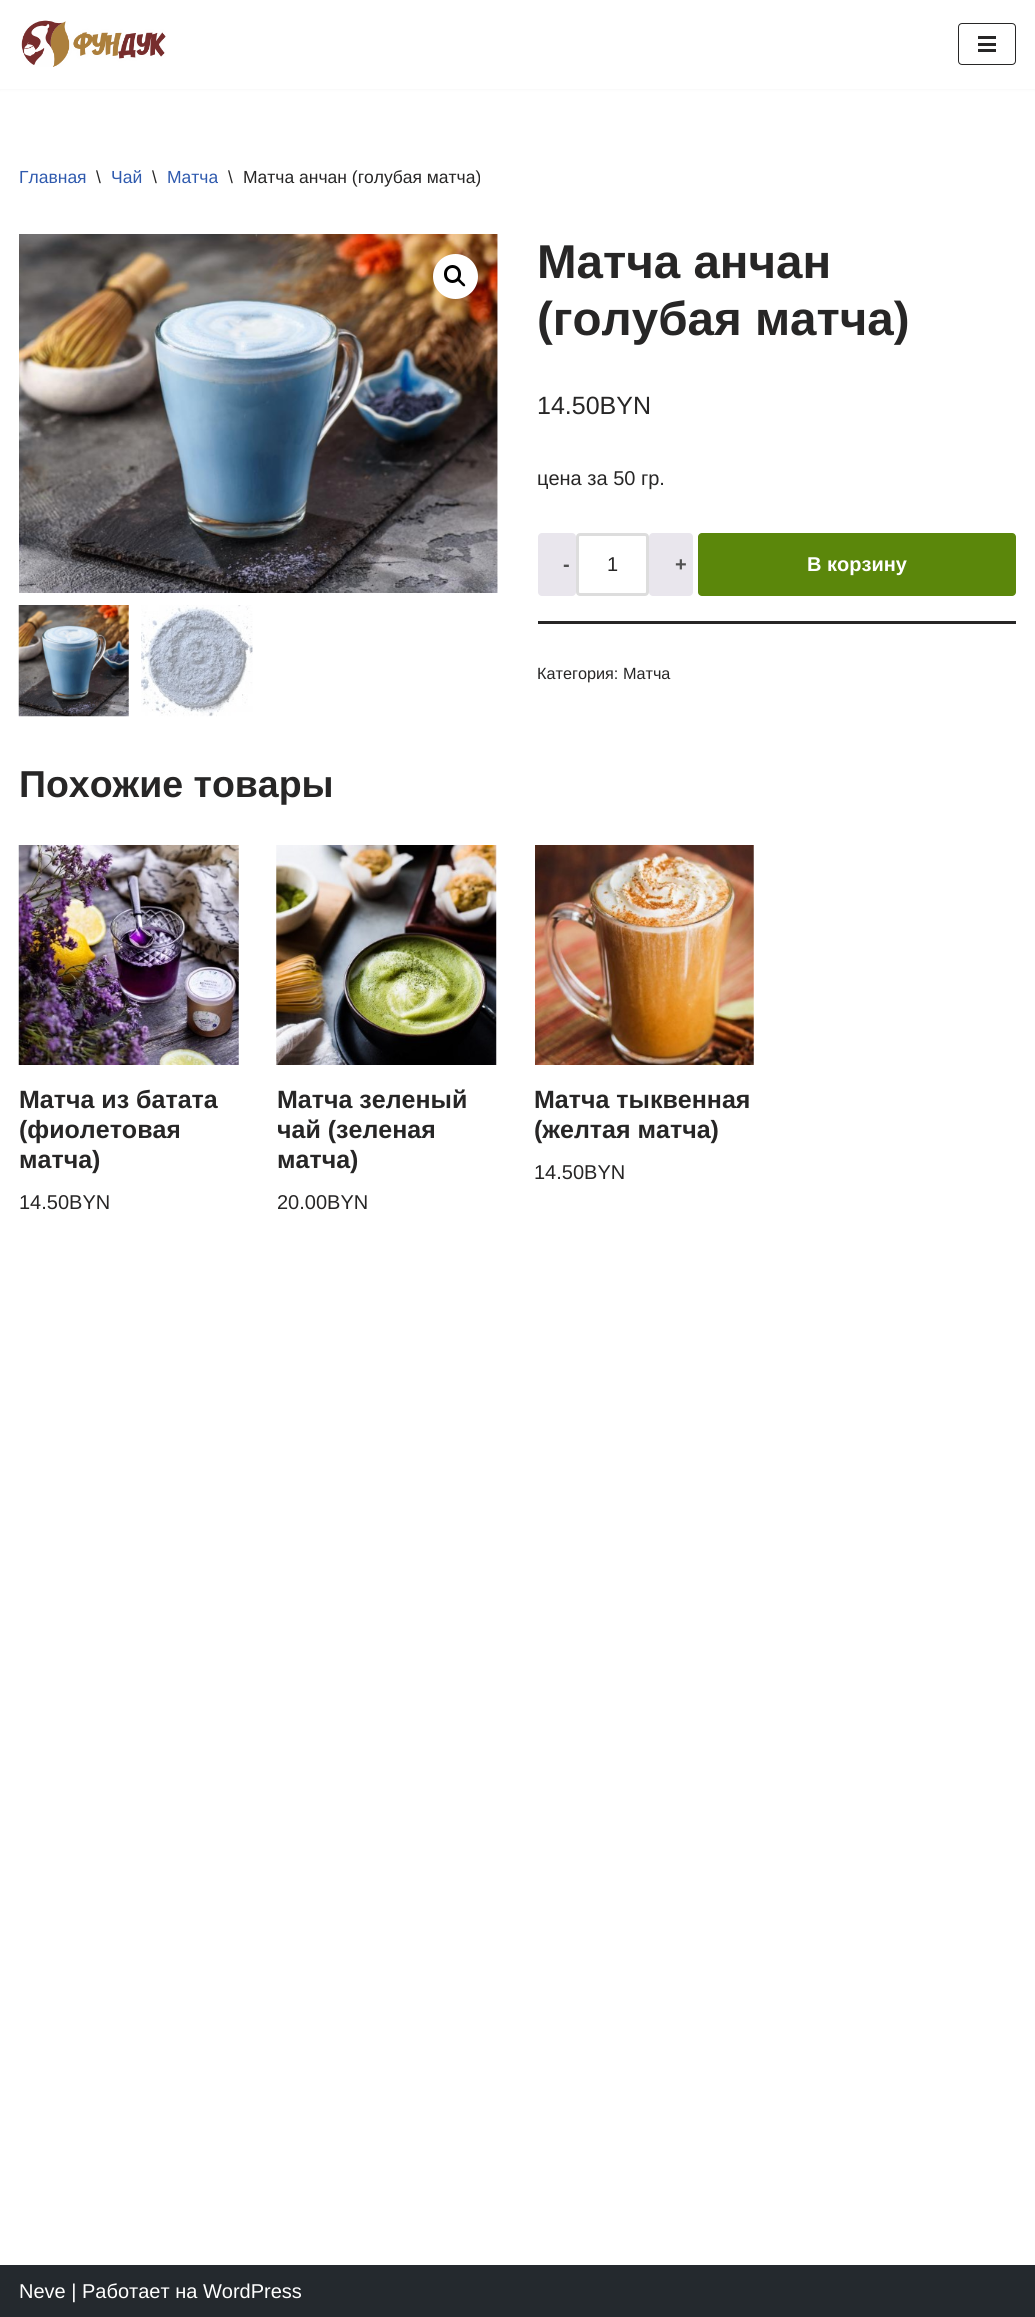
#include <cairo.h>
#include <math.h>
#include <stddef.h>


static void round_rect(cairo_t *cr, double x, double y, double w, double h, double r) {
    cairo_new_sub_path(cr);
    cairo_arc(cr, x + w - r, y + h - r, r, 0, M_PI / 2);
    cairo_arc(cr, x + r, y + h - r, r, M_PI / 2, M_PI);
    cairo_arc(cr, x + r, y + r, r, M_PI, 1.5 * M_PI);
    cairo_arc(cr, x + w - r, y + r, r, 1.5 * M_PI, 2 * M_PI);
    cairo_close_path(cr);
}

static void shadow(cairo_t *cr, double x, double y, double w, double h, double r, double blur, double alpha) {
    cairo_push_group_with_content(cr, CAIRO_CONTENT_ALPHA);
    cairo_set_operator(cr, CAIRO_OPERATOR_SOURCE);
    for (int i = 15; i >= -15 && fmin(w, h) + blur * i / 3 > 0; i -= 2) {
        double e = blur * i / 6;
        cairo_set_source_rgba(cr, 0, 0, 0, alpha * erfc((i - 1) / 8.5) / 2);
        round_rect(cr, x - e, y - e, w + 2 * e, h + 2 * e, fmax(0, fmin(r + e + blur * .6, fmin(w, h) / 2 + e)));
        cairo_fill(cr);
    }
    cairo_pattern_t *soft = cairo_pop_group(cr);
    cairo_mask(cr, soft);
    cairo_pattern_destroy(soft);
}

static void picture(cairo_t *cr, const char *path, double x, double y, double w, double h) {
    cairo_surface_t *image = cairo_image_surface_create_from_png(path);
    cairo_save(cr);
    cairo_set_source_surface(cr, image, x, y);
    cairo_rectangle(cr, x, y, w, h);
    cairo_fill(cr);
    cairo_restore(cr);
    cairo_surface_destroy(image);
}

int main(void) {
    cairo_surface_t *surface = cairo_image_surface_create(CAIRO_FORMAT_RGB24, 1035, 2317);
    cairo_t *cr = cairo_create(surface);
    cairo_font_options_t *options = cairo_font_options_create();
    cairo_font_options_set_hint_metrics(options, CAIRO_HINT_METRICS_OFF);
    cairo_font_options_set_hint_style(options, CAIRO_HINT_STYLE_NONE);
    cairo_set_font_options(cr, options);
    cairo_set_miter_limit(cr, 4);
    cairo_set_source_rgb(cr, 1, 1, 1);
    cairo_paint(cr);
    cairo_set_source_rgb(cr, 0, 0, 0);
    shadow(cr, 0, -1, 1035, 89, 0, 2, 0.1);
    cairo_set_source_rgb(cr, 1, 1, 1);
    cairo_rectangle(cr, 0, 0, 1035, 89);
    cairo_fill(cr);
    picture(cr, "img1.png", 21, 20, 145, 47);
    round_rect(cr, 958.5, 23.5, 57, 41, 3.5);
    cairo_set_source_rgb(cr, 0.153, 0.149, 0.149);
    cairo_set_line_width(cr, 1);
    cairo_stroke(cr);
    cairo_rectangle(cr, 978, 36, 18, 3);
    cairo_fill(cr);
    cairo_rectangle(cr, 978, 43, 18, 3);
    cairo_fill(cr);
    cairo_rectangle(cr, 978, 49, 18, 3);
    cairo_fill(cr);
    cairo_select_font_face(cr, "Liberation Sans", CAIRO_FONT_SLANT_NORMAL, CAIRO_FONT_WEIGHT_NORMAL);
    cairo_set_font_size(cr, 17.5);
    cairo_set_source_rgb(cr, 0.184, 0.353, 0.682);
    cairo_move_to(cr, 19, 183);
    cairo_show_text(cr, "Главная");
    cairo_set_source_rgb(cr, 0.153, 0.149, 0.149);
    cairo_move_to(cr, 96, 183);
    cairo_show_text(cr, "\\");
    cairo_set_source_rgb(cr, 0.184, 0.353, 0.682);
    cairo_move_to(cr, 111, 183);
    cairo_show_text(cr, "Чай");
    cairo_set_source_rgb(cr, 0.153, 0.149, 0.149);
    cairo_move_to(cr, 152, 183);
    cairo_show_text(cr, "\\");
    cairo_set_source_rgb(cr, 0.184, 0.353, 0.682);
    cairo_move_to(cr, 167, 183);
    cairo_show_text(cr, "Матча");
    cairo_set_source_rgb(cr, 0.153, 0.149, 0.149);
    cairo_move_to(cr, 228, 183);
    cairo_show_text(cr, "\\");
    cairo_move_to(cr, 243, 183);
    cairo_show_text(cr, "Матча анчан (голубая матча)");
    picture(cr, "img2.png", 19, 234, 479, 359);
    cairo_set_source_rgb(cr, 1, 1, 1);
    cairo_arc(cr, 455.5, 276.5, 22.5, 0, 2 * M_PI);
    cairo_fill(cr);
    round_rect(cr, 445.5, 266.5, 14, 15, 7);
    cairo_set_source_rgb(cr, 0, 0, 0);
    cairo_set_line_width(cr, 3);
    cairo_stroke(cr);
    cairo_new_path(cr);
    cairo_move_to(cr, 458, 279);
    cairo_curve_to(cr, 459, 277.5, 461.5, 281, 462, 281.5);
    cairo_curve_to(cr, 463, 282.5, 466, 284.5, 465, 286);
    cairo_curve_to(cr, 463.5, 287.5, 461, 284, 460.5, 283.5);
    cairo_curve_to(cr, 459.5, 282.5, 456.5, 280.5, 458, 279);
    cairo_close_path(cr);
    cairo_fill(cr);
    picture(cr, "img3.png", 18, 605, 111, 112);
    picture(cr, "img4.png", 141, 605, 112, 112);
    cairo_select_font_face(cr, "Liberation Sans", CAIRO_FONT_SLANT_NORMAL, CAIRO_FONT_WEIGHT_BOLD);
    cairo_set_font_size(cr, 47.5);
    cairo_set_source_rgb(cr, 0.153, 0.149, 0.149);
    cairo_move_to(cr, 537, 278);
    cairo_show_text(cr, "Матча анчан");
    cairo_move_to(cr, 537, 335);
    cairo_show_text(cr, "(голубая матча)");
    cairo_select_font_face(cr, "Liberation Sans", CAIRO_FONT_SLANT_NORMAL, CAIRO_FONT_WEIGHT_NORMAL);
    cairo_set_font_size(cr, 25);
    cairo_move_to(cr, 537, 414);
    cairo_show_text(cr, "14.50BYN");
    cairo_set_font_size(cr, 20);
    cairo_move_to(cr, 537, 485);
    cairo_show_text(cr, "цена за 50 гр.");
    cairo_rectangle(cr, 538, 621, 478, 3);
    cairo_fill(cr);
    cairo_set_source_rgb(cr, 0.914, 0.902, 0.929);
    round_rect(cr, 538, 533, 38, 63, 4);
    cairo_fill(cr);
    cairo_select_font_face(cr, "Liberation Sans", CAIRO_FONT_SLANT_NORMAL, CAIRO_FONT_WEIGHT_BOLD);
    cairo_set_source_rgb(cr, 0.318, 0.318, 0.318);
    cairo_move_to(cr, 563, 571);
    cairo_show_text(cr, "-");
    round_rect(cr, 577.5, 534.5, 70, 60, 2.5);
    cairo_set_source_rgb(cr, 0.867, 0.867, 0.867);
    cairo_stroke(cr);
    cairo_select_font_face(cr, "Liberation Sans", CAIRO_FONT_SLANT_NORMAL, CAIRO_FONT_WEIGHT_NORMAL);
    cairo_set_source_rgb(cr, 0.153, 0.149, 0.149);
    cairo_move_to(cr, 607, 571);
    cairo_show_text(cr, "1");
    cairo_set_source_rgb(cr, 0.914, 0.902, 0.929);
    round_rect(cr, 649, 533, 44, 63, 4);
    cairo_fill(cr);
    cairo_select_font_face(cr, "Liberation Sans", CAIRO_FONT_SLANT_NORMAL, CAIRO_FONT_WEIGHT_BOLD);
    cairo_set_source_rgb(cr, 0.318, 0.318, 0.318);
    cairo_move_to(cr, 675, 571);
    cairo_show_text(cr, "+");
    cairo_set_source_rgb(cr, 0.357, 0.529, 0.043);
    round_rect(cr, 698, 533, 318, 63, 4);
    cairo_fill(cr);
    cairo_set_source_rgb(cr, 1, 1, 1);
    cairo_move_to(cr, 807, 571);
    cairo_show_text(cr, "В корзину");
    cairo_select_font_face(cr, "Liberation Sans", CAIRO_FONT_SLANT_NORMAL, CAIRO_FONT_WEIGHT_NORMAL);
    cairo_set_font_size(cr, 16.25);
    cairo_set_source_rgb(cr, 0.153, 0.149, 0.149);
    cairo_move_to(cr, 537, 679);
    cairo_show_text(cr, "Категория: Матча");
    cairo_select_font_face(cr, "Liberation Sans", CAIRO_FONT_SLANT_NORMAL, CAIRO_FONT_WEIGHT_BOLD);
    cairo_set_font_size(cr, 37.5);
    cairo_move_to(cr, 19, 797);
    cairo_show_text(cr, "Похожие товары");
    picture(cr, "img5.png", 18, 845, 221, 220);
    cairo_set_font_size(cr, 25);
    cairo_move_to(cr, 19, 1108);
    cairo_show_text(cr, "Матча из батата");
    cairo_move_to(cr, 19, 1138);
    cairo_show_text(cr, "(фиолетовая");
    cairo_move_to(cr, 19, 1168);
    cairo_show_text(cr, "матча)");
    cairo_select_font_face(cr, "Liberation Sans", CAIRO_FONT_SLANT_NORMAL, CAIRO_FONT_WEIGHT_NORMAL);
    cairo_set_font_size(cr, 20);
    cairo_move_to(cr, 19, 1209);
    cairo_show_text(cr, "14.50BYN");
    picture(cr, "img6.png", 276, 845, 221, 220);
    cairo_select_font_face(cr, "Liberation Sans", CAIRO_FONT_SLANT_NORMAL, CAIRO_FONT_WEIGHT_BOLD);
    cairo_set_font_size(cr, 25);
    cairo_move_to(cr, 277, 1108);
    cairo_show_text(cr, "Матча зеленый");
    cairo_move_to(cr, 277, 1138);
    cairo_show_text(cr, "чай (зеленая");
    cairo_move_to(cr, 277, 1168);
    cairo_show_text(cr, "матча)");
    cairo_select_font_face(cr, "Liberation Sans", CAIRO_FONT_SLANT_NORMAL, CAIRO_FONT_WEIGHT_NORMAL);
    cairo_set_font_size(cr, 20);
    cairo_move_to(cr, 277, 1209);
    cairo_show_text(cr, "20.00BYN");
    picture(cr, "img7.png", 535, 845, 219, 220);
    cairo_select_font_face(cr, "Liberation Sans", CAIRO_FONT_SLANT_NORMAL, CAIRO_FONT_WEIGHT_BOLD);
    cairo_set_font_size(cr, 25);
    cairo_move_to(cr, 534, 1108);
    cairo_show_text(cr, "Матча тыквенная");
    cairo_move_to(cr, 534, 1138);
    cairo_show_text(cr, "(желтая матча)");
    cairo_select_font_face(cr, "Liberation Sans", CAIRO_FONT_SLANT_NORMAL, CAIRO_FONT_WEIGHT_NORMAL);
    cairo_set_font_size(cr, 20);
    cairo_move_to(cr, 534, 1179);
    cairo_show_text(cr, "14.50BYN");
    cairo_set_source_rgb(cr, 0.141, 0.161, 0.18);
    cairo_rectangle(cr, 0, 2265, 1035, 52);
    cairo_fill(cr);
    cairo_set_source_rgb(cr, 1, 1, 1);
    cairo_move_to(cr, 19, 2298);
    cairo_show_text(cr, "Neve | Работает на WordPress");
    cairo_surface_write_to_png(surface, "page.png");
    cairo_font_options_destroy(options);
    cairo_destroy(cr);
    cairo_surface_destroy(surface);
    return 0;
}
